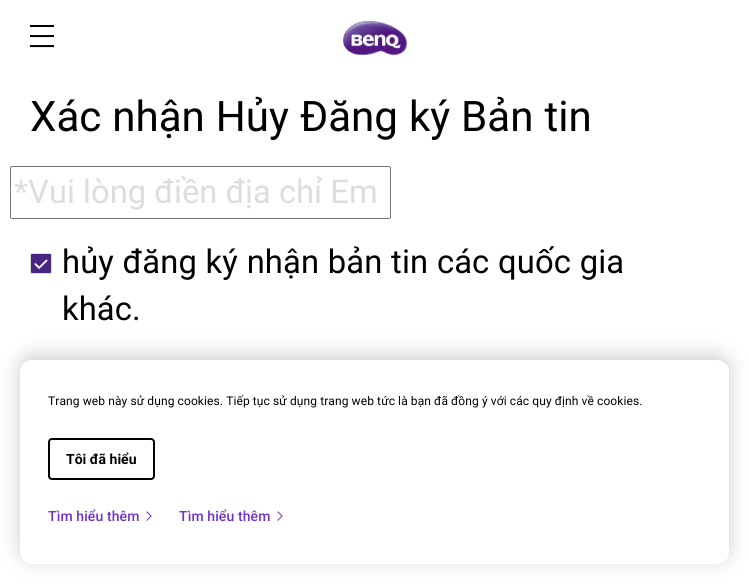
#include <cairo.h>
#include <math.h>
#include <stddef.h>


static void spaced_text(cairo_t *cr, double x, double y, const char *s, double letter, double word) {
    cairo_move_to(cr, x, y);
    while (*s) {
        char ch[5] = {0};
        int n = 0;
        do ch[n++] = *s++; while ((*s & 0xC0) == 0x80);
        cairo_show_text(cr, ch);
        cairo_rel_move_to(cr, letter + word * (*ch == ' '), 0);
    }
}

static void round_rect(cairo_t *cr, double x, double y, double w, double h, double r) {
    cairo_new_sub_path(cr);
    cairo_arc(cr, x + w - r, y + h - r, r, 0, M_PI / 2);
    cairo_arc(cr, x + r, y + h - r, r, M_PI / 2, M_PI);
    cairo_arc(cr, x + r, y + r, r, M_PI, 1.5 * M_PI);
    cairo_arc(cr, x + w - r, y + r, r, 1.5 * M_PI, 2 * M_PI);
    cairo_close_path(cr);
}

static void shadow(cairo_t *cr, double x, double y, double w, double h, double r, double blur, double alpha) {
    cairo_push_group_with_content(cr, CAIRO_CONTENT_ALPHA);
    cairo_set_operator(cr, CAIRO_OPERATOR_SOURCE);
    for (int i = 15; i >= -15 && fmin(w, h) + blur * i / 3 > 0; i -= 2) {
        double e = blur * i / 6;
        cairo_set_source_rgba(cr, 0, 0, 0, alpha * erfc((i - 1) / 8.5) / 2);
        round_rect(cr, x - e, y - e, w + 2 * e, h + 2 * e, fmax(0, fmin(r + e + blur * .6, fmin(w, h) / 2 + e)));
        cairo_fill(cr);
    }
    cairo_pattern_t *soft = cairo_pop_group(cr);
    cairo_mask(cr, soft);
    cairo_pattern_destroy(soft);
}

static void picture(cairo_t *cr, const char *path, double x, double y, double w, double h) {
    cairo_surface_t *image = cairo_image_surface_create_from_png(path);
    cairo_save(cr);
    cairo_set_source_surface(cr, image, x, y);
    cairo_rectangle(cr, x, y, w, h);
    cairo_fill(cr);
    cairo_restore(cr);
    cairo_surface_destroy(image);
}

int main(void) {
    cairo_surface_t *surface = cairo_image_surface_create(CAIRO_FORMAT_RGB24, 749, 584);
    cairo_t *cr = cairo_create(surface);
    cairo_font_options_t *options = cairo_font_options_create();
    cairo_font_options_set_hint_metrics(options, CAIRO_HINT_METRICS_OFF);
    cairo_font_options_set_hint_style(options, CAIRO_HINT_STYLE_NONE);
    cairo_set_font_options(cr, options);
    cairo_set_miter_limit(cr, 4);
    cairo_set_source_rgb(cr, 1, 1, 1);
    cairo_paint(cr);
    cairo_select_font_face(cr, "Roboto", CAIRO_FONT_SLANT_NORMAL, CAIRO_FONT_WEIGHT_NORMAL);
    cairo_set_font_size(cr, 42.1);
    cairo_set_source_rgb(cr, 0, 0, 0);
    spaced_text(cr, 30, 131, "Xác nhận Hủy Đăng ký Bản tin", 0, 0.5);
    round_rect(cr, 10.5, 166.5, 380, 52, 1.5);
    cairo_set_source_rgb(cr, 0.463, 0.463, 0.463);
    cairo_set_line_width(cr, 1);
    cairo_stroke(cr);
    cairo_set_font_size(cr, 32.75);
    cairo_set_source_rgb(cr, 0.867, 0.867, 0.867);
    cairo_move_to(cr, 14, 203);
    cairo_show_text(cr, "*Vui lòng điền địa chỉ Em");
    cairo_set_source_rgb(cr, 0.286, 0.145, 0.51);
    round_rect(cr, 30.5, 253.5, 21, 20, 1.5);
    cairo_fill_preserve(cr);
    cairo_set_source_rgb(cr, 0.867, 0.867, 0.867);
    cairo_stroke(cr);
    picture(cr, "img1.png", 34, 259, 14, 10);
    cairo_set_source_rgb(cr, 0, 0, 0);
    spaced_text(cr, 62, 273, "hủy đăng ký nhận bản tin các quốc gia", 0.1, 0.5);
    spaced_text(cr, 62, 320, "khác.", 0.1, 0);
    picture(cr, "img2.png", 30, 25, 24, 23);
    picture(cr, "img3.png", 343, 20, 64, 36);
    cairo_set_source_rgb(cr, 0, 0, 0);
    shadow(cr, 20, 356, 709, 204, 12, 10, 0.2);
    cairo_set_source_rgb(cr, 1, 1, 1);
    round_rect(cr, 20, 360, 709, 204, 12);
    cairo_fill(cr);
    cairo_set_font_size(cr, 12);
    cairo_set_source_rgb(cr, 0, 0, 0);
    spaced_text(cr, 48, 405, "Trang web này sử dụng cookies. Tiếp tục sử dụng trang web tức là bạn đã đồng ý với các quy định về cookies.", 0.1, 0);
    round_rect(cr, 49, 439, 105, 40, 3);
    cairo_set_line_width(cr, 2);
    cairo_stroke(cr);
    cairo_select_font_face(cr, "Roboto", CAIRO_FONT_SLANT_NORMAL, CAIRO_FONT_WEIGHT_BOLD);
    cairo_set_font_size(cr, 14);
    cairo_move_to(cr, 66, 464);
    cairo_show_text(cr, "Tôi đã hiểu");
    cairo_select_font_face(cr, "Roboto Medium", CAIRO_FONT_SLANT_NORMAL, CAIRO_FONT_WEIGHT_NORMAL);
    cairo_set_source_rgb(cr, 0.447, 0.192, 0.776);
    spaced_text(cr, 48, 521, "Tìm hiểu thêm", 0.1, 0);
    picture(cr, "img4.png", 146, 511, 6, 10);
    spaced_text(cr, 179, 521, "Tìm hiểu thêm", 0.1, 0);
    picture(cr, "img4.png", 277, 511, 6, 10);
    cairo_surface_write_to_png(surface, "page.png");
    cairo_font_options_destroy(options);
    cairo_destroy(cr);
    cairo_surface_destroy(surface);
    return 0;
}
